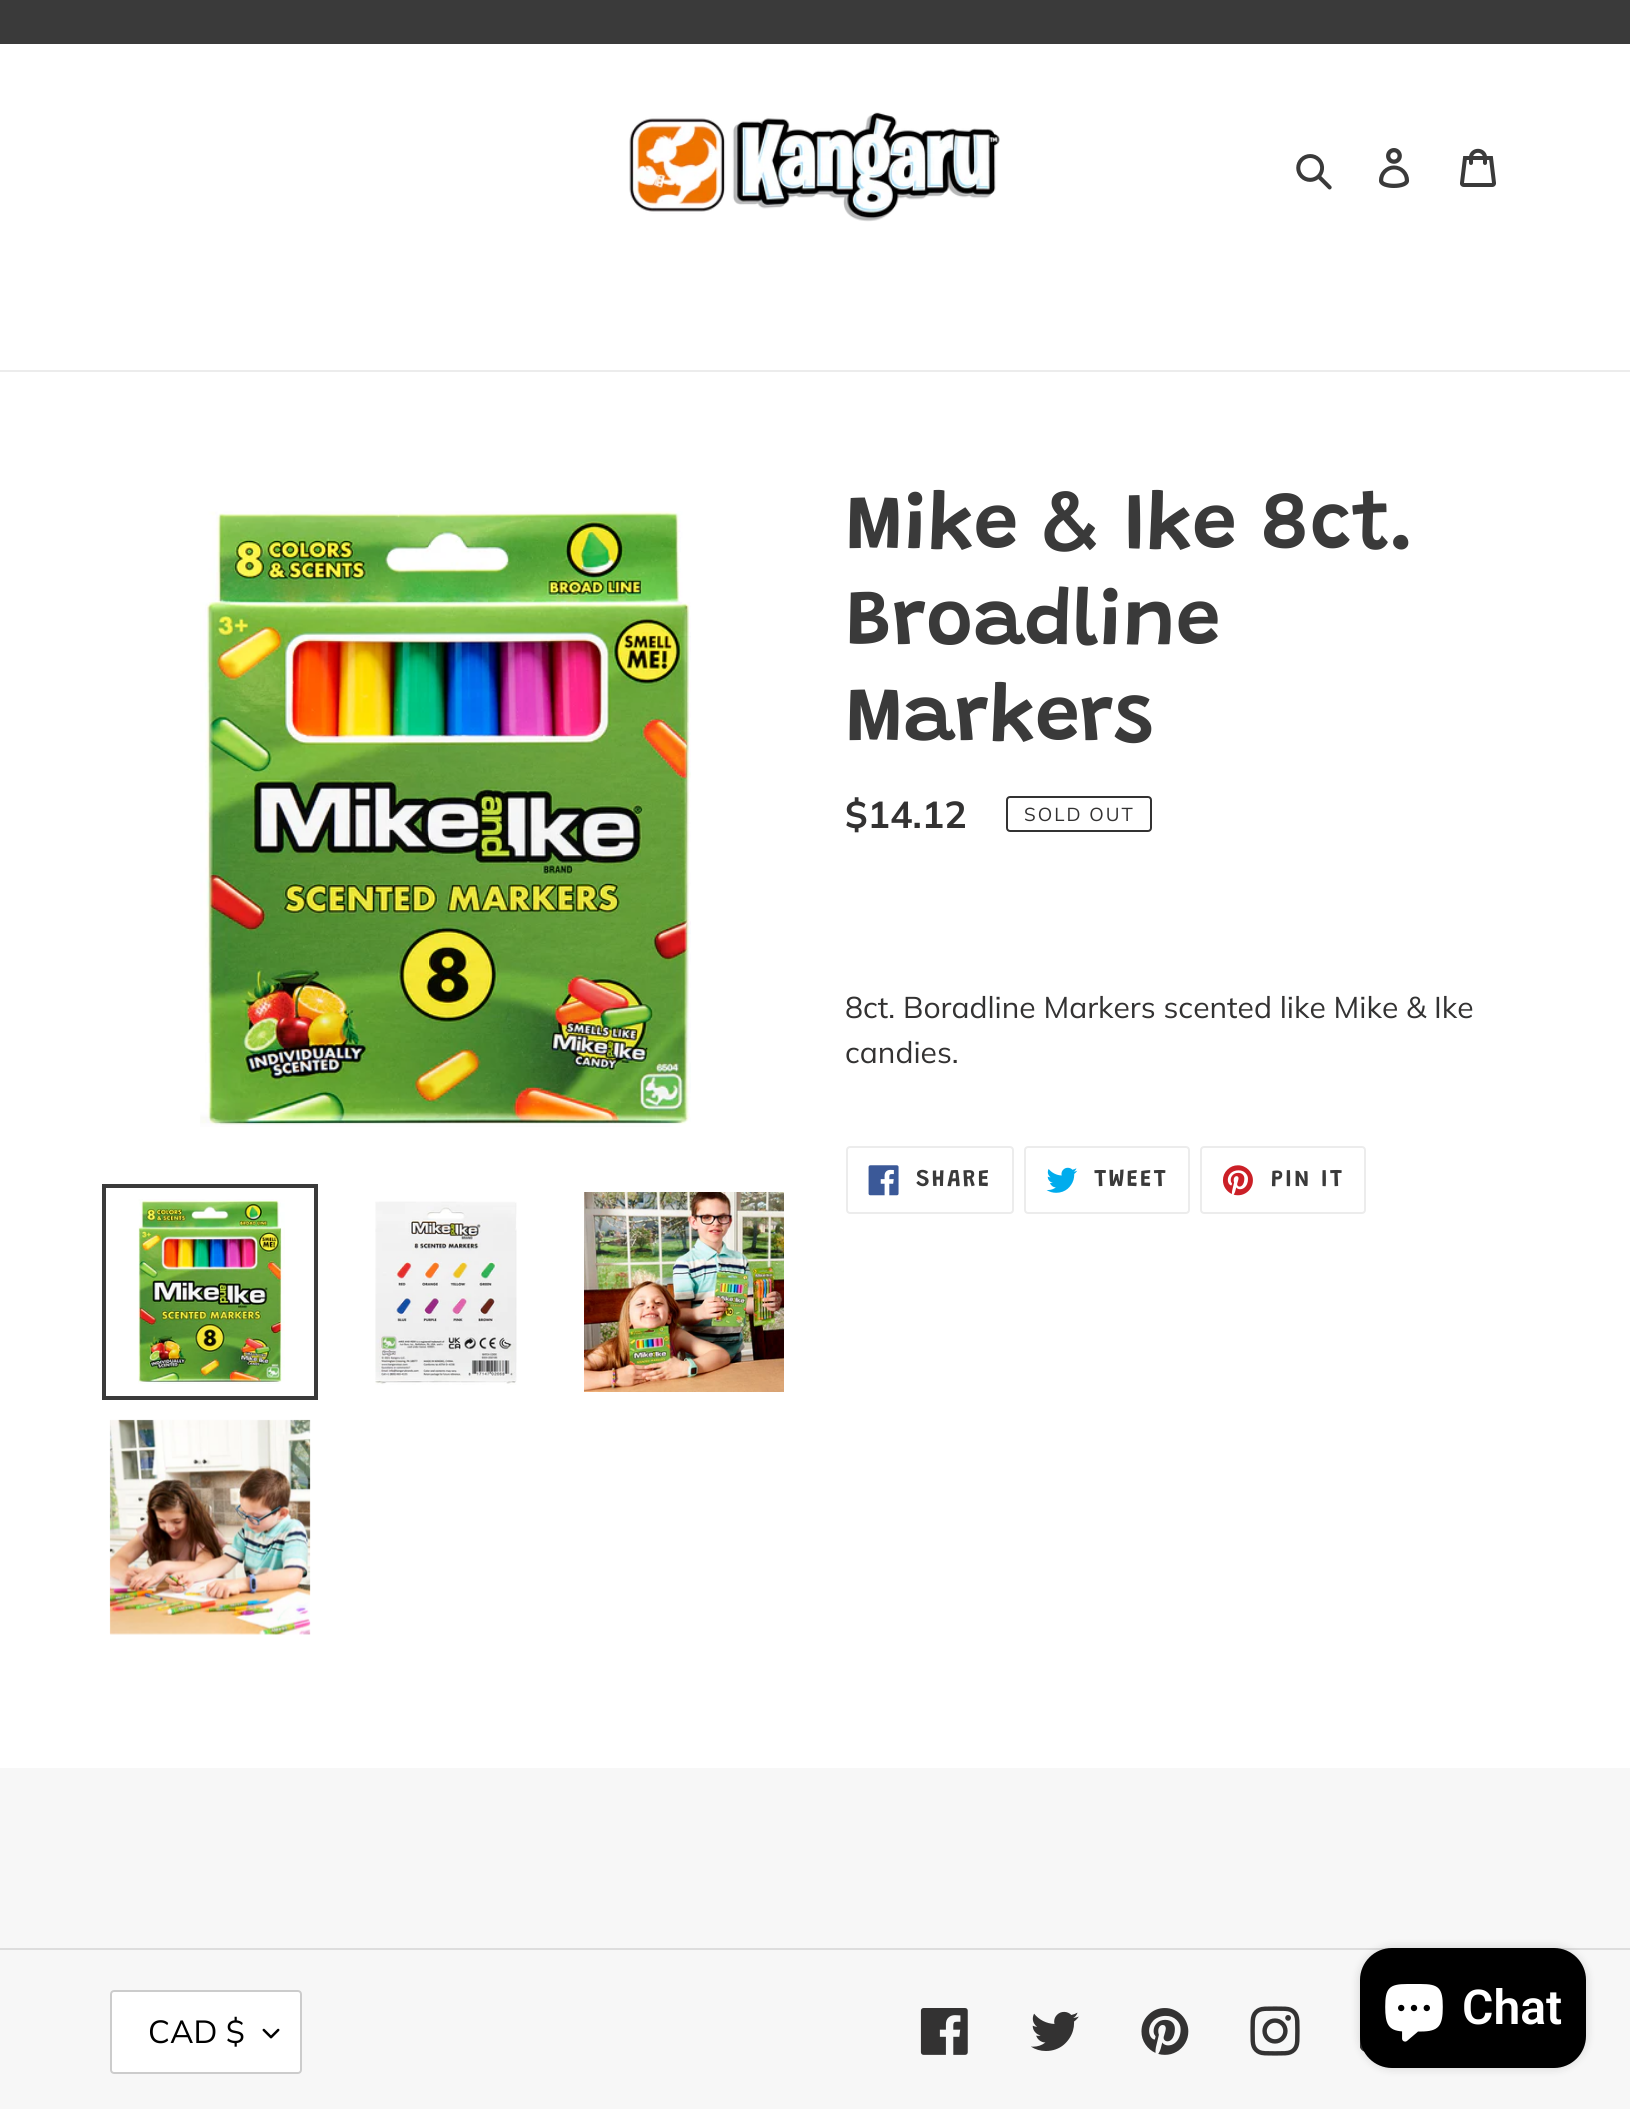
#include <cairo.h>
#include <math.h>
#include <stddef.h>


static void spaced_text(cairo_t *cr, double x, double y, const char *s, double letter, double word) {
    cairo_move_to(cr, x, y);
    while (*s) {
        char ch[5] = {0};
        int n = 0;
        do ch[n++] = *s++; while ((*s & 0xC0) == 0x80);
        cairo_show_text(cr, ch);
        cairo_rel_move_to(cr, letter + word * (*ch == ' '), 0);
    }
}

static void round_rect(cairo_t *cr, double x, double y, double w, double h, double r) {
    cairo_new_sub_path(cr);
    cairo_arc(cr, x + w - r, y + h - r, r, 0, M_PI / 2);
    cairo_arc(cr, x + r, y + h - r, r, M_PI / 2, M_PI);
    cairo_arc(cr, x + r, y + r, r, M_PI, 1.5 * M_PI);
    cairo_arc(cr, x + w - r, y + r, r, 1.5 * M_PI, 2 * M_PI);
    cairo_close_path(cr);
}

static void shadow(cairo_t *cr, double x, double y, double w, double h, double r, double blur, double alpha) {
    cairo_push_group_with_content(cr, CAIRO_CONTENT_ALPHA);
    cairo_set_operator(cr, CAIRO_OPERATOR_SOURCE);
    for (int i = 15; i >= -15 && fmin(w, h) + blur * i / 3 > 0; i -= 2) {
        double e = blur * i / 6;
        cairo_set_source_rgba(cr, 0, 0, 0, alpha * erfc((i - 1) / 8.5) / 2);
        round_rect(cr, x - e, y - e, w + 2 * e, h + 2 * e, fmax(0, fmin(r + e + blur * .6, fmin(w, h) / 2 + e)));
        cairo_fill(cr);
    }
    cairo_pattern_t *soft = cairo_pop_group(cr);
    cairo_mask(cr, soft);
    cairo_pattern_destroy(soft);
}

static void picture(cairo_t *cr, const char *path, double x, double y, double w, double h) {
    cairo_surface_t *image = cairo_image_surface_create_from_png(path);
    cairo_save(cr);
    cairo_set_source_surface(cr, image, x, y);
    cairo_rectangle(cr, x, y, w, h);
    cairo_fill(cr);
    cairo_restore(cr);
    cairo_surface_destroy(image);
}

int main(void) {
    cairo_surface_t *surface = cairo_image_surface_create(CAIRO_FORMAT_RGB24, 1630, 2109);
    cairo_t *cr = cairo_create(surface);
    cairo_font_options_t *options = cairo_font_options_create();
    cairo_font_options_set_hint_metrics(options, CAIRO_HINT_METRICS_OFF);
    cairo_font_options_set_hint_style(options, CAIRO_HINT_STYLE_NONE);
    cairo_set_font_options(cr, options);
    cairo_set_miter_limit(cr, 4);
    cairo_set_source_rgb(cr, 1, 1, 1);
    cairo_paint(cr);
    cairo_set_source_rgb(cr, 0.227, 0.227, 0.227);
    cairo_rectangle(cr, 0, 0, 1630, 44);
    cairo_fill(cr);
    picture(cr, "img1.png", 629, 112, 371, 110);
    picture(cr, "img2.png", 1296, 154, 36, 36);
    picture(cr, "img3.png", 1379, 148, 31, 40);
    picture(cr, "img4.png", 1460, 148, 36, 39);
    cairo_set_source_rgb(cr, 0.922, 0.922, 0.922);
    cairo_rectangle(cr, 0, 370, 1630, 2);
    cairo_fill(cr);
    picture(cr, "img5.png", 200, 511, 491, 616);
    cairo_rectangle(cr, 104, 1186, 212, 212);
    cairo_set_source_rgb(cr, 0.227, 0.227, 0.227);
    cairo_set_line_width(cr, 4);
    cairo_stroke(cr);
    picture(cr, "img6.png", 138, 1199, 147, 185);
    picture(cr, "img7.png", 375, 1201, 142, 184);
    picture(cr, "img8.png", 584, 1192, 200, 200);
    picture(cr, "img9.png", 109, 1419, 202, 216);
    cairo_select_font_face(cr, "Grandstander SemiBold", CAIRO_FONT_SLANT_NORMAL, CAIRO_FONT_WEIGHT_NORMAL);
    cairo_set_font_size(cr, 80);
    cairo_move_to(cr, 845, 548);
    cairo_show_text(cr, "Mike & Ike 8ct.");
    cairo_move_to(cr, 845, 644);
    cairo_show_text(cr, "Broadline");
    cairo_move_to(cr, 845, 740);
    cairo_show_text(cr, "Markers");
    cairo_select_font_face(cr, "Muli", CAIRO_FONT_SLANT_NORMAL, CAIRO_FONT_WEIGHT_BOLD);
    cairo_set_font_size(cr, 37.5);
    cairo_set_source_rgb(cr, 0.2, 0.196, 0.196);
    cairo_move_to(cr, 845, 828);
    cairo_show_text(cr, "$14.12");
    round_rect(cr, 1007, 797, 144, 34, 3);
    cairo_set_line_width(cr, 2);
    cairo_stroke(cr);
    cairo_select_font_face(cr, "Muli", CAIRO_FONT_SLANT_NORMAL, CAIRO_FONT_WEIGHT_NORMAL);
    cairo_set_font_size(cr, 18.75);
    spaced_text(cr, 1024, 821, "SOLD OUT", 2, 0);
    cairo_set_font_size(cr, 30);
    cairo_move_to(cr, 845, 1018);
    cairo_show_text(cr, "8ct. Boradline Markers scented like Mike & Ike");
    cairo_move_to(cr, 845, 1063);
    cairo_show_text(cr, "candies.");
    round_rect(cr, 847, 1147, 166, 66, 3);
    cairo_set_source_rgb(cr, 0.922, 0.922, 0.922);
    cairo_stroke(cr);
    picture(cr, "img10.png", 868, 1165, 31, 31);
    cairo_select_font_face(cr, "Grandstander SemiBold", CAIRO_FONT_SLANT_NORMAL, CAIRO_FONT_WEIGHT_NORMAL);
    cairo_set_font_size(cr, 24);
    cairo_set_source_rgb(cr, 0.227, 0.227, 0.227);
    spaced_text(cr, 916, 1186, "SHARE", 2, 0);
    round_rect(cr, 1025, 1147, 164, 66, 3);
    cairo_set_source_rgb(cr, 0.922, 0.922, 0.922);
    cairo_stroke(cr);
    picture(cr, "img11.png", 1046, 1167, 32, 26);
    cairo_set_source_rgb(cr, 0.227, 0.227, 0.227);
    spaced_text(cr, 1094, 1186, "TWEET", 2, 0);
    round_rect(cr, 1201, 1147, 164, 66, 3);
    cairo_set_source_rgb(cr, 0.922, 0.922, 0.922);
    cairo_stroke(cr);
    picture(cr, "img12.png", 1222, 1165, 31, 31);
    cairo_set_source_rgb(cr, 0.227, 0.227, 0.227);
    spaced_text(cr, 1271, 1186, "PIN IT", 2, 0);
    cairo_set_source_rgb(cr, 0.965, 0.965, 0.965);
    cairo_rectangle(cr, 0, 1768, 1630, 341);
    cairo_fill(cr);
    cairo_set_source_rgb(cr, 0.867, 0.867, 0.867);
    cairo_rectangle(cr, 0, 1948, 1630, 2);
    cairo_fill(cr);
    cairo_set_source_rgb(cr, 1, 1, 1);
    round_rect(cr, 110, 1990, 192, 84, 4);
    cairo_fill(cr);
    picture(cr, "img13.png", 262, 2028, 18, 11);
    round_rect(cr, 111, 1991, 190, 82, 3);
    cairo_set_source_rgb(cr, 0.8, 0.8, 0.8);
    cairo_stroke(cr);
    cairo_select_font_face(cr, "Muli", CAIRO_FONT_SLANT_NORMAL, CAIRO_FONT_WEIGHT_NORMAL);
    cairo_set_font_size(cr, 32);
    cairo_set_source_rgb(cr, 0, 0, 0);
    cairo_move_to(cr, 148, 2043);
    cairo_show_text(cr, "CAD $");
    picture(cr, "img14.png", 920, 2008, 48, 47);
    picture(cr, "img15.png", 1031, 2011, 48, 40);
    picture(cr, "img16.png", 1141, 2008, 48, 47);
    picture(cr, "img17.png", 1250, 2006, 50, 50);
    picture(cr, "img18.png", 1360, 2036, 5, 16);
    cairo_set_source_rgb(cr, 0, 0, 0);
    shadow(cr, 1360, 1948, 226, 120, 32, 5, 0.15);
    cairo_set_source_rgb(cr, 0, 0, 0);
    round_rect(cr, 1360, 1948, 226, 120, 32);
    cairo_fill(cr);
    picture(cr, "img19.png", 1385, 1984, 58, 58);
    cairo_select_font_face(cr, "Roboto SemiBold", CAIRO_FONT_SLANT_NORMAL, CAIRO_FONT_WEIGHT_NORMAL);
    cairo_set_font_size(cr, 48);
    cairo_set_source_rgb(cr, 1, 1, 1);
    cairo_move_to(cr, 1462, 2024);
    cairo_show_text(cr, "Chat");
    cairo_surface_write_to_png(surface, "page.png");
    cairo_font_options_destroy(options);
    cairo_destroy(cr);
    cairo_surface_destroy(surface);
    return 0;
}
